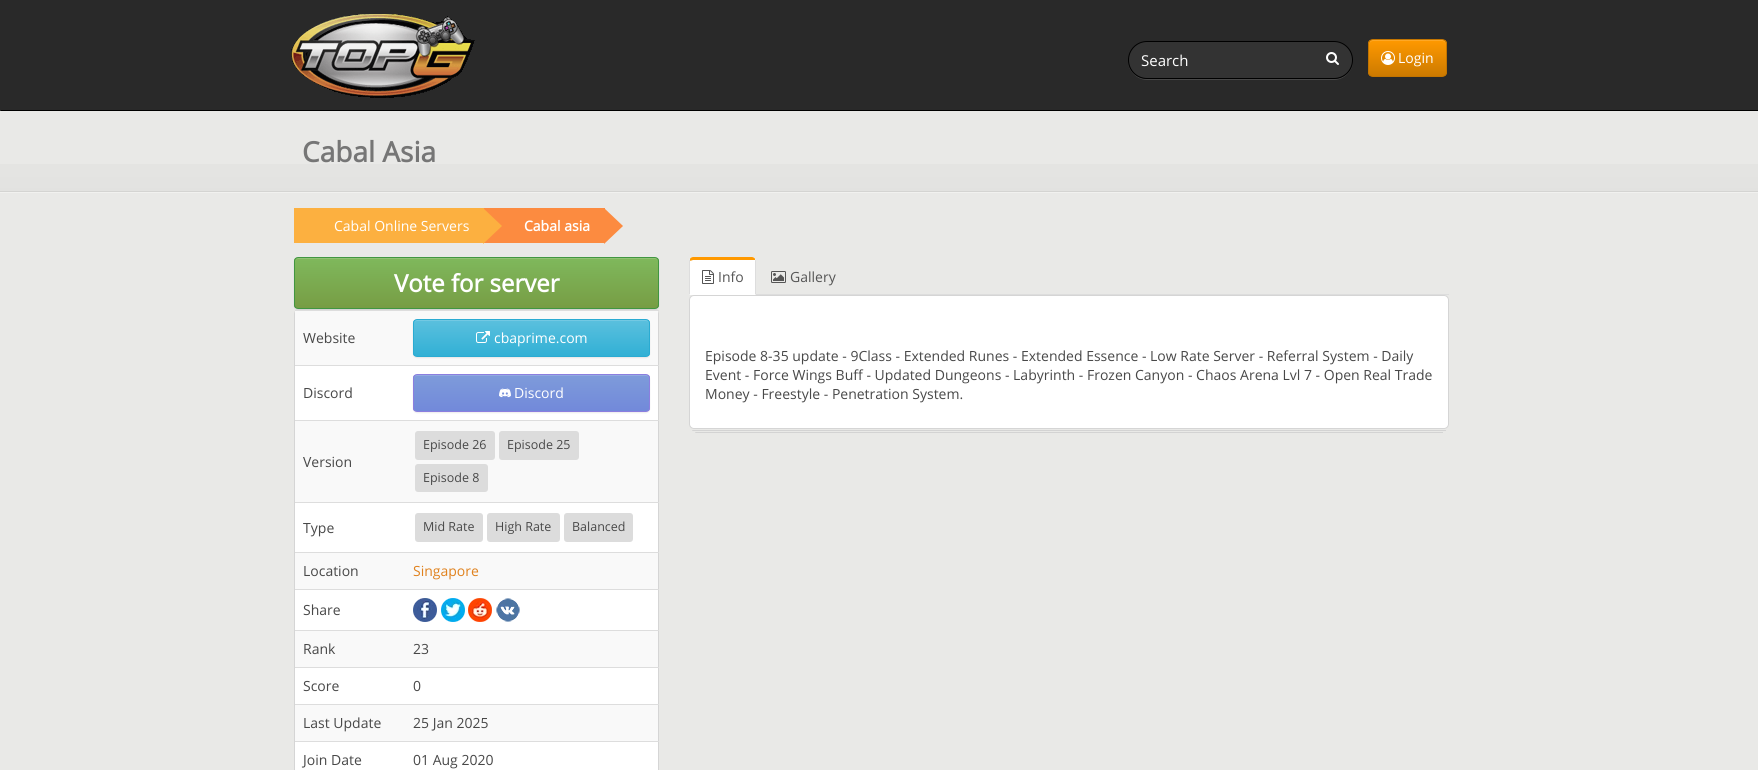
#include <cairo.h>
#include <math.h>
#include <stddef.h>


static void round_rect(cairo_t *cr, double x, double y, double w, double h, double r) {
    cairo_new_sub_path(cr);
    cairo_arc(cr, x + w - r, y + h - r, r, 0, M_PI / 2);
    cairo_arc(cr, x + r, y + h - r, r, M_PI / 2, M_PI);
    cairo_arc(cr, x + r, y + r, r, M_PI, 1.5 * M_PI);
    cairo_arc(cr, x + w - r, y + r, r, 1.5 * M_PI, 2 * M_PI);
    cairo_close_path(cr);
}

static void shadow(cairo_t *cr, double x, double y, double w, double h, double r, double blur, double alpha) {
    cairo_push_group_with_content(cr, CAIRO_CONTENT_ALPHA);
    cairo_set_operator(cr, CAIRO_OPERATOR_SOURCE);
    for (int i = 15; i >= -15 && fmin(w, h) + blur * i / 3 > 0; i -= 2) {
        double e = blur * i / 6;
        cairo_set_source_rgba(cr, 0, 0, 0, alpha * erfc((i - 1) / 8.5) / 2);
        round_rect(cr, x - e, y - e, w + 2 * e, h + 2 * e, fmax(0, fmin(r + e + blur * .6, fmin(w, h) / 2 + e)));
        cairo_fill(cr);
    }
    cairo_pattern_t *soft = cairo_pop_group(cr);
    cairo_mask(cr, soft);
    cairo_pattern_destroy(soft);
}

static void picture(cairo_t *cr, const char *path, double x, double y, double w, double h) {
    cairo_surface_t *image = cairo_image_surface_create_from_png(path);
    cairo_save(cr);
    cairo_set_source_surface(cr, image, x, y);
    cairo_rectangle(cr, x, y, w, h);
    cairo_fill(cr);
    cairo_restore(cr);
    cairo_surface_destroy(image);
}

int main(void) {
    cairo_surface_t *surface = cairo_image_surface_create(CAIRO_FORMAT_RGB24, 1758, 770);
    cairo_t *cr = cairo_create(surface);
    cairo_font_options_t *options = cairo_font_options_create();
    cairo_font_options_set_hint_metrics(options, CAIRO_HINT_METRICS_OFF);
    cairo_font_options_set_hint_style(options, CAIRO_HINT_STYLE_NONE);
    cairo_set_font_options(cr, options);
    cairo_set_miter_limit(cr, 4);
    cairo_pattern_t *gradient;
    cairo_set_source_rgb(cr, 0.914, 0.914, 0.906);
    cairo_paint(cr);
    cairo_set_source_rgb(cr, 0.161, 0.161, 0.161);
    cairo_rectangle(cr, 1, 0, 1757, 110);
    cairo_fill(cr);
    cairo_set_source_rgb(cr, 0, 0, 0);
    cairo_rectangle(cr, 0, 110, 1758, 1);
    cairo_fill(cr);
    cairo_set_source_rgb(cr, 0.161, 0.161, 0.161);
    cairo_rectangle(cr, 0, 0, 1, 111);
    cairo_fill(cr);
    picture(cr, "img1.png", 291, 14, 184, 84);
    cairo_set_source_rgb(cr, 0.286, 0.286, 0.286);
    cairo_new_path(cr);
    cairo_move_to(cr, 1128, 60);
    cairo_line_to(cr, 1128, 61);
    cairo_curve_to(cr, 1128, 71, 1137, 80, 1147, 80);
    cairo_line_to(cr, 1334, 80);
    cairo_curve_to(cr, 1344, 80, 1353, 71, 1353, 61);
    cairo_line_to(cr, 1353, 60);
    cairo_curve_to(cr, 1353, 71, 1344, 79, 1334, 79);
    cairo_line_to(cr, 1147, 79);
    cairo_curve_to(cr, 1137, 79, 1128, 71, 1128, 60);
    cairo_close_path(cr);
    cairo_fill(cr);
    cairo_set_source_rgb(cr, 0.2, 0.2, 0.2);
    round_rect(cr, 1128.5, 41.5, 224, 37, 18.5);
    cairo_fill_preserve(cr);
    cairo_set_source_rgb(cr, 0, 0, 0);
    cairo_set_line_width(cr, 1);
    cairo_stroke(cr);
    cairo_select_font_face(cr, "Open Sans", CAIRO_FONT_SLANT_NORMAL, CAIRO_FONT_WEIGHT_NORMAL);
    cairo_set_font_size(cr, 15);
    cairo_set_source_rgb(cr, 1, 1, 1);
    cairo_move_to(cr, 1141, 66);
    cairo_show_text(cr, "Search");
    picture(cr, "img2.png", 1326, 52, 13, 13);
    cairo_save(cr);
    round_rect(cr, 1368, 39, 79, 38, 5);
    cairo_clip(cr);
    gradient = cairo_pattern_create_linear(1408, 40, 1408, 76);
    cairo_pattern_add_color_stop_rgba(gradient, 0, 1, 0.6, 0, 1);
    cairo_pattern_add_color_stop_rgba(gradient, 1, 0.8, 0.478, 0, 1);
    cairo_set_source(cr, gradient);
    cairo_pattern_destroy(gradient);
    cairo_rectangle(cr, 1368, 40, 79, 36);
    cairo_fill(cr);
    cairo_restore(cr);
    cairo_set_source_rgba(cr, 1, 1, 1, 0.15);
    cairo_new_path(cr);
    cairo_move_to(cr, 1373, 41);
    cairo_line_to(cr, 1442, 41);
    cairo_curve_to(cr, 1444, 41, 1446, 43, 1446, 45);
    cairo_curve_to(cr, 1446, 37, 1435, 40, 1430, 40);
    cairo_line_to(cr, 1384, 40);
    cairo_curve_to(cr, 1380, 40, 1369, 37, 1369, 45);
    cairo_curve_to(cr, 1369, 43, 1371, 41, 1373, 41);
    cairo_close_path(cr);
    cairo_fill(cr);
    round_rect(cr, 1368.5, 39.5, 78, 37, 4.5);
    cairo_set_source_rgb(cr, 0.761, 0.455, 0);
    cairo_stroke(cr);
    picture(cr, "img3.png", 1381, 51, 14, 14);
    cairo_set_font_size(cr, 14);
    cairo_set_source_rgb(cr, 1, 1, 1);
    cairo_move_to(cr, 1398, 63);
    cairo_show_text(cr, "Login");
    picture(cr, "img4.png", 0, 164, 1758, 29);
    cairo_select_font_face(cr, "Open Sans", CAIRO_FONT_SLANT_NORMAL, CAIRO_FONT_WEIGHT_BOLD);
    cairo_set_font_size(cr, 28);
    cairo_set_source_rgb(cr, 0.463, 0.463, 0.463);
    cairo_move_to(cr, 302, 162);
    cairo_show_text(cr, "Cabal Asia");
    cairo_set_source_rgb(cr, 0.988, 0.69, 0.251);
    cairo_rectangle(cr, 294, 208, 190, 35);
    cairo_fill(cr);
    cairo_select_font_face(cr, "Open Sans", CAIRO_FONT_SLANT_NORMAL, CAIRO_FONT_WEIGHT_NORMAL);
    cairo_set_font_size(cr, 14);
    cairo_set_source_rgb(cr, 1, 1, 1);
    cairo_move_to(cr, 334, 231);
    cairo_show_text(cr, "Cabal Online Servers");
    cairo_set_source_rgb(cr, 0.988, 0.545, 0.251);
    cairo_rectangle(cr, 484, 208, 121, 35);
    cairo_fill(cr);
    cairo_set_source_rgb(cr, 0.988, 0.69, 0.251);
    cairo_new_path(cr);
    cairo_move_to(cr, 483, 244);
    cairo_line_to(cr, 483, 208);
    cairo_line_to(cr, 502, 226);
    cairo_close_path(cr);
    cairo_fill(cr);
    cairo_select_font_face(cr, "Open Sans", CAIRO_FONT_SLANT_NORMAL, CAIRO_FONT_WEIGHT_BOLD);
    cairo_set_source_rgb(cr, 1, 1, 1);
    cairo_move_to(cr, 524, 231);
    cairo_show_text(cr, "Cabal asia");
    cairo_set_source_rgb(cr, 0.988, 0.545, 0.251);
    cairo_new_path(cr);
    cairo_move_to(cr, 604, 244);
    cairo_line_to(cr, 604, 208);
    cairo_line_to(cr, 623, 226);
    cairo_close_path(cr);
    cairo_fill(cr);
    cairo_set_source_rgb(cr, 0, 0, 0);
    shadow(cr, 294, 258, 365, 52, 4, 0.5, 0.07);
    cairo_save(cr);
    round_rect(cr, 294, 257, 365, 52, 4);
    cairo_clip(cr);
    gradient = cairo_pattern_create_linear(477, 258, 477, 308);
    cairo_pattern_add_color_stop_rgba(gradient, 0, 0.498, 0.722, 0.361, 1);
    cairo_pattern_add_color_stop_rgba(gradient, 1, 0.467, 0.616, 0.267, 1);
    cairo_set_source(cr, gradient);
    cairo_pattern_destroy(gradient);
    cairo_rectangle(cr, 294, 258, 365, 50);
    cairo_fill(cr);
    cairo_restore(cr);
    cairo_set_source_rgb(cr, 0.573, 0.765, 0.455);
    cairo_new_path(cr);
    cairo_move_to(cr, 298, 259);
    cairo_line_to(cr, 655, 259);
    cairo_curve_to(cr, 657, 259, 658, 260, 658, 262);
    cairo_curve_to(cr, 658, 260, 657, 258, 655, 258);
    cairo_line_to(cr, 298, 258);
    cairo_line_to(cr, 296, 259);
    cairo_line_to(cr, 295, 262);
    cairo_curve_to(cr, 295, 260, 296, 259, 298, 259);
    cairo_close_path(cr);
    cairo_fill(cr);
    round_rect(cr, 294.5, 257.5, 364, 51, 3.5);
    cairo_set_source_rgb(cr, 0.255, 0.588, 0.255);
    cairo_stroke(cr);
    cairo_set_font_size(cr, 24);
    cairo_set_source_rgb(cr, 1, 1, 1);
    cairo_move_to(cr, 394, 292);
    cairo_show_text(cr, "Vote for server");
    round_rect(cr, 294.5, 309.5, 364, 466, 4.5);
    cairo_fill_preserve(cr);
    cairo_set_source_rgb(cr, 0.835, 0.835, 0.835);
    cairo_stroke(cr);
    cairo_set_source_rgb(cr, 0.976, 0.976, 0.976);
    cairo_rectangle(cr, 295, 311, 363, 54);
    cairo_fill(cr);
    cairo_select_font_face(cr, "Open Sans", CAIRO_FONT_SLANT_NORMAL, CAIRO_FONT_WEIGHT_NORMAL);
    cairo_set_font_size(cr, 14);
    cairo_set_source_rgb(cr, 0.282, 0.282, 0.282);
    cairo_move_to(cr, 303, 343);
    cairo_show_text(cr, "Website");
    cairo_set_source_rgb(cr, 0.867, 0.867, 0.867);
    cairo_rectangle(cr, 295, 310, 364, 1);
    cairo_fill(cr);
    cairo_set_source_rgb(cr, 0, 0, 0);
    shadow(cr, 413, 320, 237, 38, 4, 0.5, 0.07);
    cairo_save(cr);
    round_rect(cr, 413, 319, 237, 38, 4);
    cairo_clip(cr);
    gradient = cairo_pattern_create_linear(532, 320, 532, 356);
    cairo_pattern_add_color_stop_rgba(gradient, 0, 0.357, 0.753, 0.871, 1);
    cairo_pattern_add_color_stop_rgba(gradient, 1, 0.192, 0.69, 0.835, 1);
    cairo_set_source(cr, gradient);
    cairo_pattern_destroy(gradient);
    cairo_rectangle(cr, 413, 320, 237, 36);
    cairo_fill(cr);
    cairo_restore(cr);
    cairo_set_source_rgb(cr, 0.451, 0.788, 0.89);
    cairo_new_path(cr);
    cairo_move_to(cr, 417, 321);
    cairo_line_to(cr, 646, 321);
    cairo_curve_to(cr, 648, 321, 649, 322, 649, 324);
    cairo_curve_to(cr, 649, 322, 648, 320, 646, 320);
    cairo_line_to(cr, 417, 320);
    cairo_curve_to(cr, 415, 320, 414, 322, 414, 324);
    cairo_curve_to(cr, 414, 322, 415, 321, 417, 321);
    cairo_close_path(cr);
    cairo_fill(cr);
    round_rect(cr, 413.5, 319.5, 236, 37, 3.5);
    cairo_set_source_rgb(cr, 0.165, 0.671, 0.824);
    cairo_stroke(cr);
    picture(cr, "img5.png", 476, 331, 14, 12);
    cairo_set_source_rgb(cr, 1, 1, 1);
    cairo_move_to(cr, 494, 343);
    cairo_show_text(cr, "cbaprime.com");
    cairo_set_source_rgb(cr, 0.282, 0.282, 0.282);
    cairo_move_to(cr, 303, 398);
    cairo_show_text(cr, "Discord");
    cairo_set_source_rgb(cr, 0.867, 0.867, 0.867);
    cairo_rectangle(cr, 295, 365, 364, 1);
    cairo_fill(cr);
    cairo_set_source_rgb(cr, 0, 0, 0);
    shadow(cr, 413, 375, 237, 38, 4, 0.5, 0.07);
    cairo_save(cr);
    round_rect(cr, 413, 374, 237, 38, 4);
    cairo_clip(cr);
    gradient = cairo_pattern_create_linear(532, 375, 532, 411);
    cairo_pattern_add_color_stop_rgba(gradient, 0, 0.494, 0.608, 0.855, 1);
    cairo_pattern_add_color_stop_rgba(gradient, 1, 0.447, 0.537, 0.855, 1);
    cairo_set_source(cr, gradient);
    cairo_pattern_destroy(gradient);
    cairo_rectangle(cr, 413, 375, 237, 36);
    cairo_fill(cr);
    cairo_restore(cr);
    cairo_set_source_rgb(cr, 0.569, 0.667, 0.878);
    cairo_new_path(cr);
    cairo_move_to(cr, 417, 376);
    cairo_line_to(cr, 646, 376);
    cairo_curve_to(cr, 648, 376, 649, 377, 649, 379);
    cairo_curve_to(cr, 649, 377, 648, 375, 646, 375);
    cairo_line_to(cr, 417, 375);
    cairo_curve_to(cr, 415, 375, 414, 377, 414, 379);
    cairo_curve_to(cr, 414, 377, 415, 376, 417, 376);
    cairo_close_path(cr);
    cairo_fill(cr);
    round_rect(cr, 413.5, 374.5, 236, 37, 3.5);
    cairo_set_source_rgb(cr, 0.545, 0.494, 0.875);
    cairo_stroke(cr);
    picture(cr, "img6.png", 499, 388, 12, 10);
    cairo_set_source_rgb(cr, 1, 1, 1);
    cairo_move_to(cr, 514, 398);
    cairo_show_text(cr, "Discord");
    cairo_set_source_rgb(cr, 0.976, 0.976, 0.976);
    cairo_rectangle(cr, 295, 421, 363, 81);
    cairo_fill(cr);
    cairo_set_source_rgb(cr, 0.282, 0.282, 0.282);
    cairo_move_to(cr, 303, 467);
    cairo_show_text(cr, "Version");
    cairo_set_source_rgb(cr, 0.867, 0.867, 0.867);
    cairo_rectangle(cr, 295, 420, 364, 1);
    cairo_fill(cr);
    cairo_set_source_rgb(cr, 0.863, 0.863, 0.863);
    round_rect(cr, 415, 431, 80, 29, 3);
    cairo_fill(cr);
    cairo_set_font_size(cr, 12.5);
    cairo_set_source_rgb(cr, 0.282, 0.282, 0.282);
    cairo_move_to(cr, 423, 449);
    cairo_show_text(cr, "Episode 26");
    cairo_set_source_rgb(cr, 0.863, 0.863, 0.863);
    round_rect(cr, 499, 431, 80, 29, 3);
    cairo_fill(cr);
    cairo_set_source_rgb(cr, 0.282, 0.282, 0.282);
    cairo_move_to(cr, 507, 449);
    cairo_show_text(cr, "Episode 25");
    cairo_set_source_rgb(cr, 0.863, 0.863, 0.863);
    round_rect(cr, 415, 464, 73, 28, 3);
    cairo_fill(cr);
    cairo_set_source_rgb(cr, 0.282, 0.282, 0.282);
    cairo_move_to(cr, 423, 482);
    cairo_show_text(cr, "Episode 8");
    cairo_set_font_size(cr, 14);
    cairo_move_to(cr, 303, 533);
    cairo_show_text(cr, "Type");
    cairo_set_source_rgb(cr, 0.867, 0.867, 0.867);
    cairo_rectangle(cr, 295, 502, 364, 1);
    cairo_fill(cr);
    cairo_set_source_rgb(cr, 0.863, 0.863, 0.863);
    round_rect(cr, 415, 513, 68, 29, 3);
    cairo_fill(cr);
    cairo_set_font_size(cr, 12.5);
    cairo_set_source_rgb(cr, 0.282, 0.282, 0.282);
    cairo_move_to(cr, 423, 531);
    cairo_show_text(cr, "Mid Rate");
    cairo_set_source_rgb(cr, 0.863, 0.863, 0.863);
    round_rect(cr, 487, 513, 73, 29, 3);
    cairo_fill(cr);
    cairo_set_source_rgb(cr, 0.282, 0.282, 0.282);
    cairo_move_to(cr, 495, 531);
    cairo_show_text(cr, "High Rate");
    cairo_set_source_rgb(cr, 0.863, 0.863, 0.863);
    round_rect(cr, 564, 513, 69, 29, 3);
    cairo_fill(cr);
    cairo_set_source_rgb(cr, 0.282, 0.282, 0.282);
    cairo_move_to(cr, 572, 531);
    cairo_show_text(cr, "Balanced");
    cairo_set_source_rgb(cr, 0.976, 0.976, 0.976);
    cairo_rectangle(cr, 295, 553, 363, 36);
    cairo_fill(cr);
    cairo_set_font_size(cr, 14);
    cairo_set_source_rgb(cr, 0.282, 0.282, 0.282);
    cairo_move_to(cr, 303, 576);
    cairo_show_text(cr, "Location");
    cairo_set_source_rgb(cr, 0.867, 0.867, 0.867);
    cairo_rectangle(cr, 295, 552, 364, 1);
    cairo_fill(cr);
    cairo_set_source_rgb(cr, 0.878, 0.51, 0.118);
    cairo_move_to(cr, 413, 576);
    cairo_show_text(cr, "Singapore");
    cairo_set_source_rgb(cr, 0.867, 0.867, 0.867);
    cairo_rectangle(cr, 295, 589, 364, 1);
    cairo_fill(cr);
    picture(cr, "img7.png", 413, 598, 24, 24);
    picture(cr, "img8.png", 441, 598, 24, 24);
    picture(cr, "img9.png", 468, 598, 24, 24);
    picture(cr, "img10.png", 496, 598, 24, 24);
    cairo_set_source_rgb(cr, 0.282, 0.282, 0.282);
    cairo_move_to(cr, 303, 615);
    cairo_show_text(cr, "Share");
    cairo_set_source_rgb(cr, 0.976, 0.976, 0.976);
    cairo_rectangle(cr, 295, 631, 363, 36);
    cairo_fill(cr);
    cairo_set_source_rgb(cr, 0.282, 0.282, 0.282);
    cairo_move_to(cr, 303, 654);
    cairo_show_text(cr, "Rank");
    cairo_set_source_rgb(cr, 0.867, 0.867, 0.867);
    cairo_rectangle(cr, 295, 630, 364, 1);
    cairo_fill(cr);
    cairo_set_source_rgb(cr, 0.282, 0.282, 0.282);
    cairo_move_to(cr, 413, 654);
    cairo_show_text(cr, "23");
    cairo_move_to(cr, 303, 691);
    cairo_show_text(cr, "Score");
    cairo_set_source_rgb(cr, 0.867, 0.867, 0.867);
    cairo_rectangle(cr, 295, 667, 364, 1);
    cairo_fill(cr);
    cairo_set_source_rgb(cr, 0.282, 0.282, 0.282);
    cairo_move_to(cr, 413, 691);
    cairo_show_text(cr, "0");
    cairo_set_source_rgb(cr, 0.976, 0.976, 0.976);
    cairo_rectangle(cr, 295, 705, 363, 36);
    cairo_fill(cr);
    cairo_set_source_rgb(cr, 0.282, 0.282, 0.282);
    cairo_move_to(cr, 303, 728);
    cairo_show_text(cr, "Last Update");
    cairo_set_source_rgb(cr, 0.867, 0.867, 0.867);
    cairo_rectangle(cr, 295, 704, 364, 1);
    cairo_fill(cr);
    cairo_set_source_rgb(cr, 0.282, 0.282, 0.282);
    cairo_move_to(cr, 413, 728);
    cairo_show_text(cr, "25 Jan 2025");
    cairo_move_to(cr, 303, 765);
    cairo_show_text(cr, "Join Date");
    cairo_set_source_rgb(cr, 0.867, 0.867, 0.867);
    cairo_rectangle(cr, 295, 741, 364, 1);
    cairo_fill(cr);
    cairo_set_source_rgb(cr, 0.282, 0.282, 0.282);
    cairo_move_to(cr, 413, 765);
    cairo_show_text(cr, "01 Aug 2020");
    cairo_set_source_rgb(cr, 0.867, 0.867, 0.867);
    cairo_rectangle(cr, 756, 294, 693, 1);
    cairo_fill(cr);
    cairo_set_source_rgb(cr, 1, 1, 1);
    cairo_new_path(cr);
    cairo_move_to(cr, 693, 257);
    cairo_line_to(cr, 752, 257);
    cairo_curve_to(cr, 754, 257, 756, 259, 756, 261);
    cairo_line_to(cr, 756, 295);
    cairo_line_to(cr, 689, 295);
    cairo_line_to(cr, 689, 261);
    cairo_curve_to(cr, 689, 259, 691, 257, 693, 257);
    cairo_close_path(cr);
    cairo_fill(cr);
    cairo_set_source_rgb(cr, 1, 0.6, 0);
    cairo_new_path(cr);
    cairo_move_to(cr, 693, 257);
    cairo_curve_to(cr, 692, 257, 690, 258, 690, 259);
    cairo_line_to(cr, 690, 261);
    cairo_line_to(cr, 693, 260);
    cairo_line_to(cr, 752, 260);
    cairo_curve_to(cr, 754, 260, 754, 260, 755, 260);
    cairo_line_to(cr, 755, 259);
    cairo_curve_to(cr, 755, 258, 753, 257, 752, 257);
    cairo_close_path(cr);
    cairo_fill(cr);
    cairo_set_source_rgb(cr, 0.867, 0.867, 0.867);
    cairo_new_path(cr);
    cairo_move_to(cr, 756, 295);
    cairo_line_to(cr, 756, 261);
    cairo_curve_to(cr, 756, 260.5, 756, 259.5, 755.5, 259);
    cairo_line_to(cr, 755, 260.5);
    cairo_line_to(cr, 755, 294);
    cairo_close_path(cr);
    cairo_fill(cr);
    cairo_new_path(cr);
    cairo_move_to(cr, 689, 295);
    cairo_line_to(cr, 690, 294);
    cairo_line_to(cr, 690, 261);
    cairo_line_to(cr, 690.5, 261);
    cairo_line_to(cr, 689.5, 259);
    cairo_line_to(cr, 689, 261);
    cairo_close_path(cr);
    cairo_fill(cr);
    picture(cr, "img11.png", 702, 270, 12, 14);
    cairo_set_source_rgb(cr, 0.333, 0.333, 0.333);
    cairo_move_to(cr, 718, 282);
    cairo_show_text(cr, "Info");
    picture(cr, "img12.png", 771, 271, 15, 12);
    cairo_move_to(cr, 790, 282);
    cairo_show_text(cr, "Gallery");
    cairo_set_source_rgb(cr, 1, 1, 1);
    round_rect(cr, 689.5, 295.5, 759, 133, 4.5);
    cairo_fill_preserve(cr);
    cairo_set_source_rgb(cr, 0.835, 0.835, 0.835);
    cairo_stroke(cr);
    cairo_set_source_rgb(cr, 0.282, 0.282, 0.282);
    cairo_move_to(cr, 705, 361);
    cairo_show_text(cr, "Episode 8-35 update - 9Class - Extended Runes - Extended Essence - Low Rate Server - Referral System - Daily");
    cairo_move_to(cr, 705, 380);
    cairo_show_text(cr, "Event - Force Wings Buff - Updated Dungeons - Labyrinth - Frozen Canyon - Chaos Arena Lvl 7 - Open Real Trade");
    cairo_move_to(cr, 705, 399);
    cairo_show_text(cr, "Money - Freestyle - Penetration System.");
    cairo_set_source_rgb(cr, 0.827, 0.827, 0.827);
    cairo_rectangle(cr, 693, 430, 753, 1);
    cairo_fill(cr);
    cairo_arc(cr, 692.5, 430.5, 0.5, 0, 2 * M_PI);
    cairo_fill(cr);
    cairo_rectangle(cr, 696, 432, 747, 1);
    cairo_fill(cr);
    cairo_arc(cr, 695.5, 432.5, 0.5, 0, 2 * M_PI);
    cairo_fill(cr);
    cairo_surface_write_to_png(surface, "page.png");
    cairo_font_options_destroy(options);
    cairo_destroy(cr);
    cairo_surface_destroy(surface);
    return 0;
}
